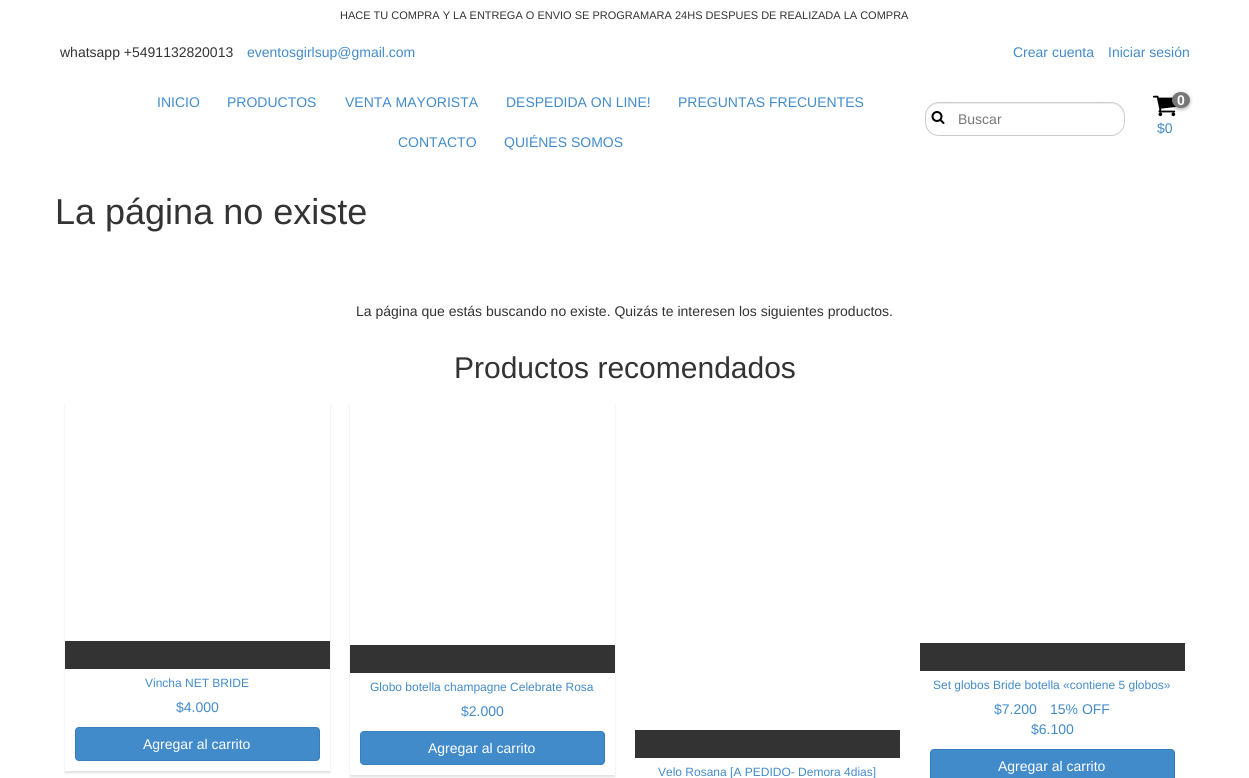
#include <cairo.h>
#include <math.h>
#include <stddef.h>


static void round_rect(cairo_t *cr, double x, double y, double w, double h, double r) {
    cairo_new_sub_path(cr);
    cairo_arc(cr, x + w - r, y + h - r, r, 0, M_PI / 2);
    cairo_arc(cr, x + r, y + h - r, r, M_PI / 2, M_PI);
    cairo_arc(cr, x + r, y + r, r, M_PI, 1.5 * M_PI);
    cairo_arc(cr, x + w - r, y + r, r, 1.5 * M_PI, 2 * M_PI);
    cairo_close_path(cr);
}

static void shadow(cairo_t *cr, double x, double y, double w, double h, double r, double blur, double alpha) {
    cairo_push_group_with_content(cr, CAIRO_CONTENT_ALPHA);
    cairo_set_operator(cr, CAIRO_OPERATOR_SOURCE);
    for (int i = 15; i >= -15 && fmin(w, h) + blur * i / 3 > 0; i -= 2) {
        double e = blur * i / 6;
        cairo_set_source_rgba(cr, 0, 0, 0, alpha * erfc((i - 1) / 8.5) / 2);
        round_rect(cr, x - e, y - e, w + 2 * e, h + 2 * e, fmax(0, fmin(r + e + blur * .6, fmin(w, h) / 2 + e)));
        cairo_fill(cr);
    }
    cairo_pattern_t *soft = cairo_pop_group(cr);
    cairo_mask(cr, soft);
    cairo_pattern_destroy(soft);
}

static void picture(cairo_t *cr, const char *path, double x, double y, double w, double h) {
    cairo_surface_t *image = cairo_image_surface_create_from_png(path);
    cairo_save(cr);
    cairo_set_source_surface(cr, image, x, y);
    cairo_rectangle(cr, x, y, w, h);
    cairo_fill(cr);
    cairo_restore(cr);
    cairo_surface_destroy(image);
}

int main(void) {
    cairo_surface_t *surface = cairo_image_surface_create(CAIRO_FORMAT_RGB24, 1249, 778);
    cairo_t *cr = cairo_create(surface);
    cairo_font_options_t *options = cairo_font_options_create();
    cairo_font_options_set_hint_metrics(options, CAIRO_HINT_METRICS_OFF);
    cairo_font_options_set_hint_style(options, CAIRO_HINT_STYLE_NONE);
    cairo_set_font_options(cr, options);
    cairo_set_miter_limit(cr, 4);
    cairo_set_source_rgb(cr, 1, 1, 1);
    cairo_paint(cr);
    cairo_select_font_face(cr, "Liberation Sans", CAIRO_FONT_SLANT_NORMAL, CAIRO_FONT_WEIGHT_NORMAL);
    cairo_set_font_size(cr, 11);
    cairo_set_source_rgb(cr, 0.2, 0.2, 0.2);
    cairo_move_to(cr, 340, 19);
    cairo_show_text(cr, "HACE TU COMPRA Y LA ENTREGA O ENVIO SE PROGRAMARA 24HS DESPUES DE REALIZADA LA COMPRA");
    cairo_set_font_size(cr, 14);
    cairo_move_to(cr, 60, 57);
    cairo_show_text(cr, "whatsapp +5491132820013");
    cairo_set_source_rgb(cr, 0.259, 0.545, 0.792);
    cairo_move_to(cr, 247, 57);
    cairo_show_text(cr, "eventosgirlsup@gmail.com");
    cairo_move_to(cr, 1013, 57);
    cairo_show_text(cr, "Crear cuenta");
    cairo_move_to(cr, 1108, 57);
    cairo_show_text(cr, "Iniciar sesión");
    cairo_move_to(cr, 157, 107);
    cairo_show_text(cr, "INICIO");
    cairo_move_to(cr, 227, 107);
    cairo_show_text(cr, "PRODUCTOS");
    cairo_move_to(cr, 345, 107);
    cairo_show_text(cr, "VENTA MAYORISTA");
    cairo_move_to(cr, 506, 107);
    cairo_show_text(cr, "DESPEDIDA ON LINE!");
    cairo_move_to(cr, 678, 107);
    cairo_show_text(cr, "PREGUNTAS FRECUENTES");
    cairo_move_to(cr, 398, 147);
    cairo_show_text(cr, "CONTACTO");
    cairo_move_to(cr, 504, 147);
    cairo_show_text(cr, "QUIÉNES SOMOS");
    cairo_set_source_rgb(cr, 0.925, 0.925, 0.925);
    cairo_new_path(cr);
    cairo_move_to(cr, 939, 104);
    cairo_line_to(cr, 1111, 104);
    cairo_curve_to(cr, 1118, 104, 1124, 110, 1124, 117);
    cairo_curve_to(cr, 1124, 96, 1094, 103, 1082, 103);
    cairo_line_to(cr, 968, 103);
    cairo_curve_to(cr, 956, 103, 926, 96, 926, 117);
    cairo_curve_to(cr, 926, 110, 932, 104, 939, 104);
    cairo_close_path(cr);
    cairo_fill(cr);
    round_rect(cr, 925.5, 102.5, 199, 33, 13.5);
    cairo_set_source_rgb(cr, 0.8, 0.8, 0.8);
    cairo_set_line_width(cr, 1);
    cairo_stroke(cr);
    picture(cr, "img1.png", 931, 111, 14, 13);
    cairo_set_source_rgb(cr, 0.467, 0.467, 0.467);
    cairo_move_to(cr, 958, 124);
    cairo_show_text(cr, "Buscar");
    picture(cr, "img2.png", 1153, 95, 24, 22);
    cairo_set_source_rgb(cr, 0, 0, 0);
    shadow(cr, 1172, 94, 18, 16, 8, 1.5, 0.2);
    shadow(cr, 1172, 92, 18, 16, 8, 2.5, 0.1);
    cairo_set_source_rgb(cr, 0.467, 0.467, 0.467);
    cairo_new_path(cr);
    cairo_move_to(cr, 1181, 92);
    cairo_curve_to(cr, 1186, 92, 1190, 95.5, 1190, 100);
    cairo_curve_to(cr, 1190, 104.5, 1186, 108, 1181, 108);
    cairo_curve_to(cr, 1176, 108, 1172, 104.5, 1172, 100);
    cairo_curve_to(cr, 1172, 95.5, 1176, 92, 1181, 92);
    cairo_close_path(cr);
    cairo_fill(cr);
    cairo_select_font_face(cr, "Liberation Sans", CAIRO_FONT_SLANT_NORMAL, CAIRO_FONT_WEIGHT_BOLD);
    cairo_set_source_rgb(cr, 1, 1, 1);
    cairo_move_to(cr, 1177, 105);
    cairo_show_text(cr, "0");
    cairo_select_font_face(cr, "Liberation Sans", CAIRO_FONT_SLANT_NORMAL, CAIRO_FONT_WEIGHT_NORMAL);
    cairo_set_source_rgb(cr, 0.259, 0.545, 0.792);
    cairo_move_to(cr, 1157, 133);
    cairo_show_text(cr, "$0");
    cairo_set_font_size(cr, 36);
    cairo_set_source_rgb(cr, 0.2, 0.2, 0.2);
    cairo_move_to(cr, 55, 224);
    cairo_show_text(cr, "La página no existe");
    cairo_set_font_size(cr, 14);
    cairo_move_to(cr, 356, 316);
    cairo_show_text(cr, "La página que estás buscando no existe. Quizás te interesen los siguientes productos.");
    cairo_set_font_size(cr, 30);
    cairo_move_to(cr, 454, 378);
    cairo_show_text(cr, "Productos recomendados");
    cairo_save(cr);
    cairo_set_fill_rule(cr, CAIRO_FILL_RULE_EVEN_ODD);
    cairo_new_path(cr);
    cairo_move_to(cr, 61, 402);
    cairo_line_to(cr, 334, 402);
    cairo_line_to(cr, 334, 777);
    cairo_line_to(cr, 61, 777);
    cairo_close_path(cr);
    cairo_move_to(cr, 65, 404);
    cairo_line_to(cr, 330, 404);
    cairo_line_to(cr, 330, 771);
    cairo_line_to(cr, 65, 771);
    cairo_close_path(cr);
    cairo_clip(cr);
    cairo_set_source_rgb(cr, 0.196, 0.196, 0.196);
    shadow(cr, 65, 406, 265, 367, 0, 1, 0.15);
    cairo_restore(cr);
    cairo_rectangle(cr, 65, 641, 265, 28);
    cairo_fill(cr);
    cairo_set_font_size(cr, 12);
    cairo_set_source_rgb(cr, 0.259, 0.545, 0.792);
    cairo_move_to(cr, 145, 687);
    cairo_show_text(cr, "Vincha NET BRIDE");
    cairo_set_font_size(cr, 14);
    cairo_move_to(cr, 176, 712);
    cairo_show_text(cr, "$4.000");
    round_rect(cr, 75.5, 727.5, 244, 33, 3.5);
    cairo_fill_preserve(cr);
    cairo_set_source_rgb(cr, 0.208, 0.494, 0.741);
    cairo_stroke(cr);
    cairo_set_source_rgb(cr, 1, 1, 1);
    cairo_move_to(cr, 143, 749);
    cairo_show_text(cr, "Agregar al carrito");
    cairo_save(cr);
    cairo_set_fill_rule(cr, CAIRO_FILL_RULE_EVEN_ODD);
    cairo_new_path(cr);
    cairo_move_to(cr, 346, 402);
    cairo_line_to(cr, 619, 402);
    cairo_line_to(cr, 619, 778);
    cairo_line_to(cr, 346, 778);
    cairo_close_path(cr);
    cairo_move_to(cr, 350, 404);
    cairo_line_to(cr, 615, 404);
    cairo_line_to(cr, 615, 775);
    cairo_line_to(cr, 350, 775);
    cairo_close_path(cr);
    cairo_clip(cr);
    cairo_set_source_rgb(cr, 0.196, 0.196, 0.196);
    shadow(cr, 350, 406, 265, 371, 0, 1, 0.15);
    cairo_restore(cr);
    cairo_set_source_rgb(cr, 0.2, 0.2, 0.2);
    cairo_rectangle(cr, 350, 645, 265, 28);
    cairo_fill(cr);
    cairo_set_font_size(cr, 12);
    cairo_set_source_rgb(cr, 0.259, 0.545, 0.792);
    cairo_move_to(cr, 370, 691);
    cairo_show_text(cr, "Globo botella champagne Celebrate Rosa");
    cairo_set_font_size(cr, 14);
    cairo_move_to(cr, 461, 716);
    cairo_show_text(cr, "$2.000");
    round_rect(cr, 360.5, 731.5, 244, 33, 3.5);
    cairo_fill_preserve(cr);
    cairo_set_source_rgb(cr, 0.208, 0.494, 0.741);
    cairo_stroke(cr);
    cairo_set_source_rgb(cr, 1, 1, 1);
    cairo_move_to(cr, 428, 753);
    cairo_show_text(cr, "Agregar al carrito");
    cairo_set_source_rgb(cr, 0.2, 0.2, 0.2);
    cairo_rectangle(cr, 920, 643, 265, 28);
    cairo_fill(cr);
    cairo_set_font_size(cr, 12);
    cairo_set_source_rgb(cr, 0.259, 0.545, 0.792);
    cairo_move_to(cr, 933, 689);
    cairo_show_text(cr, "Set globos Bride botella «contiene 5 globos»");
    cairo_set_font_size(cr, 14);
    cairo_move_to(cr, 994, 714);
    cairo_show_text(cr, "$7.200");
    cairo_move_to(cr, 1050, 714);
    cairo_show_text(cr, "15% OFF");
    cairo_move_to(cr, 1031, 734);
    cairo_show_text(cr, "$6.100");
    round_rect(cr, 930.5, 749.5, 244, 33, 3.5);
    cairo_fill_preserve(cr);
    cairo_set_source_rgb(cr, 0.208, 0.494, 0.741);
    cairo_stroke(cr);
    cairo_set_source_rgb(cr, 1, 1, 1);
    cairo_move_to(cr, 998, 771);
    cairo_show_text(cr, "Agregar al carrito");
    cairo_set_source_rgb(cr, 0.2, 0.2, 0.2);
    cairo_rectangle(cr, 635, 730, 265, 28);
    cairo_fill(cr);
    cairo_set_font_size(cr, 12);
    cairo_set_source_rgb(cr, 0.259, 0.545, 0.792);
    cairo_move_to(cr, 658, 776);
    cairo_show_text(cr, "Velo Rosana [A PEDIDO- Demora 4dias]");
    cairo_surface_write_to_png(surface, "page.png");
    cairo_font_options_destroy(options);
    cairo_destroy(cr);
    cairo_surface_destroy(surface);
    return 0;
}
